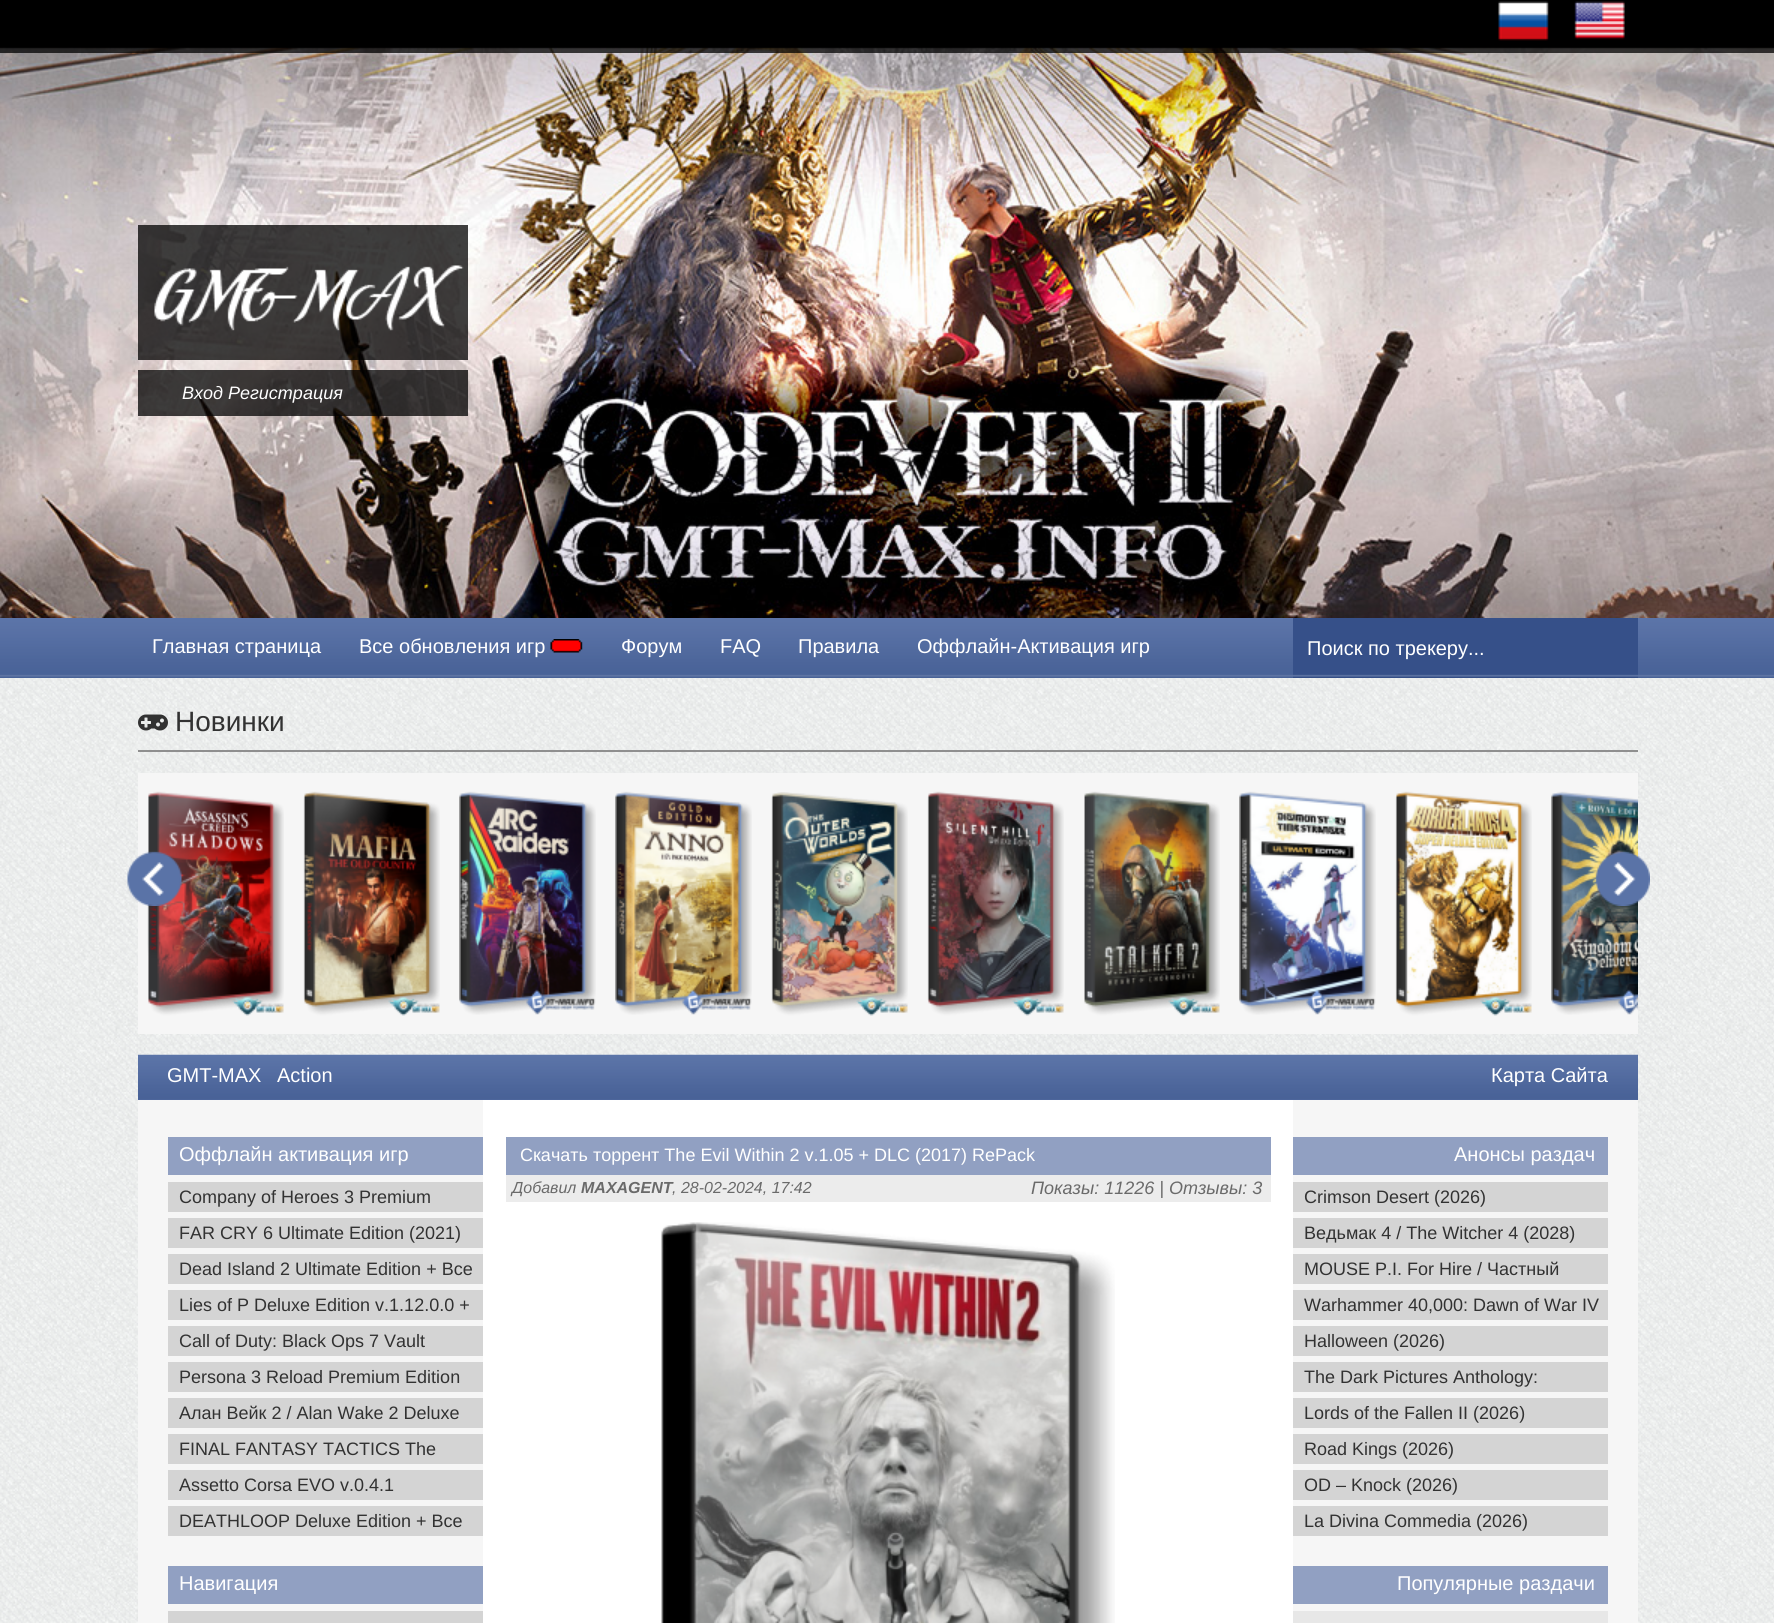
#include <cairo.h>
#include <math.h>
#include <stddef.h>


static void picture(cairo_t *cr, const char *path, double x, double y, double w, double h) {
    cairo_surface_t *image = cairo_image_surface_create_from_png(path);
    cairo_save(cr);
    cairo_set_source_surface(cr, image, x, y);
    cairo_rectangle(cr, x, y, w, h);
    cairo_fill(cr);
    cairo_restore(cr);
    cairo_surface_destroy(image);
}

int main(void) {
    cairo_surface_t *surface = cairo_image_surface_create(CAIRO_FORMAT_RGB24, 1774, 1623);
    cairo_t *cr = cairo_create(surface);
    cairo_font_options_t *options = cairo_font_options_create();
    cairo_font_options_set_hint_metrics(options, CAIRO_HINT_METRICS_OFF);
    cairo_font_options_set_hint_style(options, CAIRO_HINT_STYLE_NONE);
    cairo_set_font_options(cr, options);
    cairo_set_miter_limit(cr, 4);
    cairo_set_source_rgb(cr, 1, 1, 1);
    cairo_paint(cr);
    picture(cr, "img1.png", 0, 678, 1774, 945);
    picture(cr, "img4.png", 0, 47, 1774, 571);
    cairo_set_source_rgba(cr, 0, 0, 0, 0.75);
    cairo_rectangle(cr, 0, 47, 1774, 6);
    cairo_fill(cr);
    cairo_set_source_rgb(cr, 0, 0, 0);
    cairo_rectangle(cr, 0, 0, 1774, 47);
    cairo_fill(cr);
    picture(cr, "img2.png", 1498, 1, 51, 40);
    picture(cr, "img3.png", 1574, 1, 51, 39);
    cairo_set_source_rgba(cr, 0, 0, 0, 0.75);
    cairo_rectangle(cr, 138, 225, 330, 135);
    cairo_fill(cr);
    picture(cr, "img5.png", 154, 265, 310, 66);
    cairo_rectangle(cr, 138, 370, 330, 46);
    cairo_fill(cr);
    cairo_select_font_face(cr, "Liberation Sans", CAIRO_FONT_SLANT_ITALIC, CAIRO_FONT_WEIGHT_NORMAL);
    cairo_set_font_size(cr, 18);
    cairo_set_source_rgb(cr, 1, 1, 1);
    cairo_move_to(cr, 182, 399);
    cairo_show_text(cr, "Вход Регистрация");
    picture(cr, "img6.png", 0, 618, 1774, 60);
    cairo_select_font_face(cr, "Liberation Sans", CAIRO_FONT_SLANT_NORMAL, CAIRO_FONT_WEIGHT_NORMAL);
    cairo_set_font_size(cr, 20);
    cairo_move_to(cr, 152, 653);
    cairo_show_text(cr, "Главная страница");
    cairo_move_to(cr, 359, 653);
    cairo_show_text(cr, "Все обновления игр");
    picture(cr, "img7.png", 550, 639, 33, 14);
    cairo_move_to(cr, 621, 653);
    cairo_show_text(cr, "Форум");
    cairo_move_to(cr, 720, 653);
    cairo_show_text(cr, "FAQ");
    cairo_move_to(cr, 798, 653);
    cairo_show_text(cr, "Правила");
    cairo_move_to(cr, 917, 653);
    cairo_show_text(cr, "Оффлайн-Активация игр");
    picture(cr, "img8.png", 1293, 618, 345, 60);
    cairo_move_to(cr, 1307, 655);
    cairo_show_text(cr, "Поиск по трекеру...");
    cairo_set_source_rgb(cr, 0.561, 0.561, 0.561);
    cairo_rectangle(cr, 138, 750, 1500, 2);
    cairo_fill(cr);
    picture(cr, "img9.png", 138, 714, 30, 17);
    cairo_set_font_size(cr, 28);
    cairo_set_source_rgb(cr, 0.196, 0.196, 0.196);
    cairo_move_to(cr, 175, 731);
    cairo_show_text(cr, "Новинки");
    cairo_set_source_rgb(cr, 0.961, 0.961, 0.961);
    cairo_rectangle(cr, 138, 773, 1500, 261);
    cairo_fill(cr);
    picture(cr, "img10.png", 147, 791, 137, 225);
    picture(cr, "img11.png", 303, 791, 137, 225);
    picture(cr, "img12.png", 459, 791, 137, 224);
    picture(cr, "img13.png", 615, 791, 137, 224);
    picture(cr, "img14.png", 771, 792, 137, 224);
    picture(cr, "img15.png", 927, 791, 137, 225);
    picture(cr, "img16.png", 1084, 791, 136, 225);
    picture(cr, "img17.png", 1239, 791, 137, 224);
    picture(cr, "img18.png", 1395, 791, 137, 225);
    picture(cr, "img19.png", 1551, 791, 87, 224);
    picture(cr, "img20.png", 127, 851, 55, 55);
    picture(cr, "img21.png", 1595, 851, 55, 55);
    cairo_rectangle(cr, 138, 1100, 1500, 523);
    cairo_fill(cr);
    cairo_set_source_rgb(cr, 0.314, 0.412, 0.62);
    cairo_rectangle(cr, 138, 1099, 1500, 1);
    cairo_fill(cr);
    picture(cr, "img22.png", 138, 1054, 1500, 46);
    cairo_set_font_size(cr, 20);
    cairo_set_source_rgb(cr, 1, 1, 1);
    cairo_move_to(cr, 167, 1082);
    cairo_show_text(cr, "GMT-MAX");
    cairo_move_to(cr, 277, 1082);
    cairo_show_text(cr, "Action");
    cairo_move_to(cr, 1491, 1082);
    cairo_show_text(cr, "Карта Сайта");
    cairo_set_source_rgb(cr, 0.569, 0.627, 0.761);
    cairo_rectangle(cr, 168, 1137, 315, 38);
    cairo_fill(cr);
    cairo_set_source_rgb(cr, 1, 1, 1);
    cairo_move_to(cr, 179, 1161);
    cairo_show_text(cr, "Оффлайн активация игр");
    cairo_set_source_rgb(cr, 0.831, 0.831, 0.831);
    cairo_rectangle(cr, 168, 1182, 315, 30);
    cairo_fill(cr);
    cairo_set_font_size(cr, 18);
    cairo_set_source_rgb(cr, 0.196, 0.196, 0.196);
    cairo_move_to(cr, 179, 1203);
    cairo_show_text(cr, "Company of Heroes 3 Premium");
    cairo_set_source_rgb(cr, 0.831, 0.831, 0.831);
    cairo_rectangle(cr, 168, 1218, 315, 30);
    cairo_fill(cr);
    cairo_set_source_rgb(cr, 0.196, 0.196, 0.196);
    cairo_move_to(cr, 179, 1239);
    cairo_show_text(cr, "FAR CRY 6 Ultimate Edition (2021)");
    cairo_set_source_rgb(cr, 0.831, 0.831, 0.831);
    cairo_rectangle(cr, 168, 1254, 315, 30);
    cairo_fill(cr);
    cairo_set_source_rgb(cr, 0.196, 0.196, 0.196);
    cairo_move_to(cr, 179, 1275);
    cairo_show_text(cr, "Dead Island 2 Ultimate Edition + Все");
    cairo_set_source_rgb(cr, 0.831, 0.831, 0.831);
    cairo_rectangle(cr, 168, 1290, 315, 30);
    cairo_fill(cr);
    cairo_set_source_rgb(cr, 0.196, 0.196, 0.196);
    cairo_move_to(cr, 179, 1311);
    cairo_show_text(cr, "Lies of P Deluxe Edition v.1.12.0.0 +");
    cairo_set_source_rgb(cr, 0.831, 0.831, 0.831);
    cairo_rectangle(cr, 168, 1326, 315, 30);
    cairo_fill(cr);
    cairo_set_source_rgb(cr, 0.196, 0.196, 0.196);
    cairo_move_to(cr, 179, 1347);
    cairo_show_text(cr, "Call of Duty: Black Ops 7 Vault");
    cairo_set_source_rgb(cr, 0.831, 0.831, 0.831);
    cairo_rectangle(cr, 168, 1362, 315, 30);
    cairo_fill(cr);
    cairo_set_source_rgb(cr, 0.196, 0.196, 0.196);
    cairo_move_to(cr, 179, 1383);
    cairo_show_text(cr, "Persona 3 Reload Premium Edition");
    cairo_set_source_rgb(cr, 0.831, 0.831, 0.831);
    cairo_rectangle(cr, 168, 1398, 315, 30);
    cairo_fill(cr);
    cairo_set_source_rgb(cr, 0.196, 0.196, 0.196);
    cairo_move_to(cr, 179, 1419);
    cairo_show_text(cr, "Алан Вейк 2 / Alan Wake 2 Deluxe");
    cairo_set_source_rgb(cr, 0.831, 0.831, 0.831);
    cairo_rectangle(cr, 168, 1434, 315, 30);
    cairo_fill(cr);
    cairo_set_source_rgb(cr, 0.196, 0.196, 0.196);
    cairo_move_to(cr, 179, 1455);
    cairo_show_text(cr, "FINAL FANTASY TACTICS The");
    cairo_set_source_rgb(cr, 0.831, 0.831, 0.831);
    cairo_rectangle(cr, 168, 1470, 315, 30);
    cairo_fill(cr);
    cairo_set_source_rgb(cr, 0.196, 0.196, 0.196);
    cairo_move_to(cr, 179, 1491);
    cairo_show_text(cr, "Assetto Corsa EVO v.0.4.1");
    cairo_set_source_rgb(cr, 0.831, 0.831, 0.831);
    cairo_rectangle(cr, 168, 1506, 315, 30);
    cairo_fill(cr);
    cairo_set_source_rgb(cr, 0.196, 0.196, 0.196);
    cairo_move_to(cr, 179, 1527);
    cairo_show_text(cr, "DEATHLOOP Deluxe Edition + Все");
    cairo_set_source_rgb(cr, 0.569, 0.627, 0.761);
    cairo_rectangle(cr, 168, 1566, 315, 38);
    cairo_fill(cr);
    cairo_set_font_size(cr, 20);
    cairo_set_source_rgb(cr, 1, 1, 1);
    cairo_move_to(cr, 179, 1590);
    cairo_show_text(cr, "Навигация");
    cairo_set_source_rgb(cr, 0.831, 0.831, 0.831);
    cairo_rectangle(cr, 168, 1611, 315, 12);
    cairo_fill(cr);
    cairo_set_source_rgb(cr, 1, 1, 1);
    cairo_rectangle(cr, 483, 1100, 810, 523);
    cairo_fill(cr);
    cairo_set_source_rgb(cr, 0.569, 0.627, 0.761);
    cairo_rectangle(cr, 506, 1137, 765, 38);
    cairo_fill(cr);
    cairo_set_font_size(cr, 18);
    cairo_set_source_rgb(cr, 1, 1, 1);
    cairo_move_to(cr, 520, 1161);
    cairo_show_text(cr, "Скачать торрент The Evil Within 2 v.1.05 + DLC (2017) RePack");
    cairo_set_source_rgb(cr, 0.925, 0.925, 0.925);
    cairo_rectangle(cr, 506, 1175, 765, 27);
    cairo_fill(cr);
    cairo_select_font_face(cr, "Liberation Sans", CAIRO_FONT_SLANT_ITALIC, CAIRO_FONT_WEIGHT_NORMAL);
    cairo_set_font_size(cr, 16);
    cairo_set_source_rgb(cr, 0.416, 0.416, 0.416);
    cairo_move_to(cr, 512, 1193);
    cairo_show_text(cr, "Добавил");
    cairo_select_font_face(cr, "Liberation Sans", CAIRO_FONT_SLANT_ITALIC, CAIRO_FONT_WEIGHT_BOLD);
    cairo_move_to(cr, 581, 1193);
    cairo_show_text(cr, "MAXAGENT");
    cairo_select_font_face(cr, "Liberation Sans", CAIRO_FONT_SLANT_ITALIC, CAIRO_FONT_WEIGHT_NORMAL);
    cairo_move_to(cr, 672, 1193);
    cairo_show_text(cr, ", 28-02-2024, 17:42");
    cairo_set_font_size(cr, 18);
    cairo_move_to(cr, 1031, 1194);
    cairo_show_text(cr, "Показы: 11226 | Отзывы: 3");
    picture(cr, "img23.png", 661, 1222, 454, 401);
    cairo_set_source_rgb(cr, 0.569, 0.627, 0.761);
    cairo_rectangle(cr, 1293, 1137, 315, 38);
    cairo_fill(cr);
    cairo_select_font_face(cr, "Liberation Sans", CAIRO_FONT_SLANT_NORMAL, CAIRO_FONT_WEIGHT_NORMAL);
    cairo_set_font_size(cr, 20);
    cairo_set_source_rgb(cr, 1, 1, 1);
    cairo_move_to(cr, 1454, 1161);
    cairo_show_text(cr, "Анонсы раздач");
    cairo_set_source_rgb(cr, 0.831, 0.831, 0.831);
    cairo_rectangle(cr, 1293, 1182, 315, 30);
    cairo_fill(cr);
    cairo_set_font_size(cr, 18);
    cairo_set_source_rgb(cr, 0.196, 0.196, 0.196);
    cairo_move_to(cr, 1304, 1203);
    cairo_show_text(cr, "Crimson Desert (2026)");
    cairo_set_source_rgb(cr, 0.831, 0.831, 0.831);
    cairo_rectangle(cr, 1293, 1218, 315, 30);
    cairo_fill(cr);
    cairo_set_source_rgb(cr, 0.196, 0.196, 0.196);
    cairo_move_to(cr, 1304, 1239);
    cairo_show_text(cr, "Ведьмак 4 / The Witcher 4 (2028)");
    cairo_set_source_rgb(cr, 0.831, 0.831, 0.831);
    cairo_rectangle(cr, 1293, 1254, 315, 30);
    cairo_fill(cr);
    cairo_set_source_rgb(cr, 0.196, 0.196, 0.196);
    cairo_move_to(cr, 1304, 1275);
    cairo_show_text(cr, "MOUSE P.I. For Hire / Частный");
    cairo_set_source_rgb(cr, 0.831, 0.831, 0.831);
    cairo_rectangle(cr, 1293, 1290, 315, 30);
    cairo_fill(cr);
    cairo_set_source_rgb(cr, 0.196, 0.196, 0.196);
    cairo_move_to(cr, 1304, 1311);
    cairo_show_text(cr, "Warhammer 40,000: Dawn of War IV");
    cairo_set_source_rgb(cr, 0.831, 0.831, 0.831);
    cairo_rectangle(cr, 1293, 1326, 315, 30);
    cairo_fill(cr);
    cairo_set_source_rgb(cr, 0.196, 0.196, 0.196);
    cairo_move_to(cr, 1304, 1347);
    cairo_show_text(cr, "Halloween (2026)");
    cairo_set_source_rgb(cr, 0.831, 0.831, 0.831);
    cairo_rectangle(cr, 1293, 1362, 315, 30);
    cairo_fill(cr);
    cairo_set_source_rgb(cr, 0.196, 0.196, 0.196);
    cairo_move_to(cr, 1304, 1383);
    cairo_show_text(cr, "The Dark Pictures Anthology:");
    cairo_set_source_rgb(cr, 0.831, 0.831, 0.831);
    cairo_rectangle(cr, 1293, 1398, 315, 30);
    cairo_fill(cr);
    cairo_set_source_rgb(cr, 0.196, 0.196, 0.196);
    cairo_move_to(cr, 1304, 1419);
    cairo_show_text(cr, "Lords of the Fallen II (2026)");
    cairo_set_source_rgb(cr, 0.831, 0.831, 0.831);
    cairo_rectangle(cr, 1293, 1434, 315, 30);
    cairo_fill(cr);
    cairo_set_source_rgb(cr, 0.196, 0.196, 0.196);
    cairo_move_to(cr, 1304, 1455);
    cairo_show_text(cr, "Road Kings (2026)");
    cairo_set_source_rgb(cr, 0.831, 0.831, 0.831);
    cairo_rectangle(cr, 1293, 1470, 315, 30);
    cairo_fill(cr);
    cairo_set_source_rgb(cr, 0.196, 0.196, 0.196);
    cairo_move_to(cr, 1304, 1491);
    cairo_show_text(cr, "OD – Knock (2026)");
    cairo_set_source_rgb(cr, 0.831, 0.831, 0.831);
    cairo_rectangle(cr, 1293, 1506, 315, 30);
    cairo_fill(cr);
    cairo_set_source_rgb(cr, 0.196, 0.196, 0.196);
    cairo_move_to(cr, 1304, 1527);
    cairo_show_text(cr, "La Divina Commedia (2026)");
    cairo_set_source_rgb(cr, 0.569, 0.627, 0.761);
    cairo_rectangle(cr, 1293, 1566, 315, 38);
    cairo_fill(cr);
    cairo_set_font_size(cr, 20);
    cairo_set_source_rgb(cr, 1, 1, 1);
    cairo_move_to(cr, 1397, 1590);
    cairo_show_text(cr, "Популярные раздачи");
    cairo_set_source_rgb(cr, 0.906, 0.906, 0.906);
    cairo_rectangle(cr, 1293, 1611, 315, 12);
    cairo_fill(cr);
    cairo_surface_write_to_png(surface, "page.png");
    cairo_font_options_destroy(options);
    cairo_destroy(cr);
    cairo_surface_destroy(surface);
    return 0;
}
